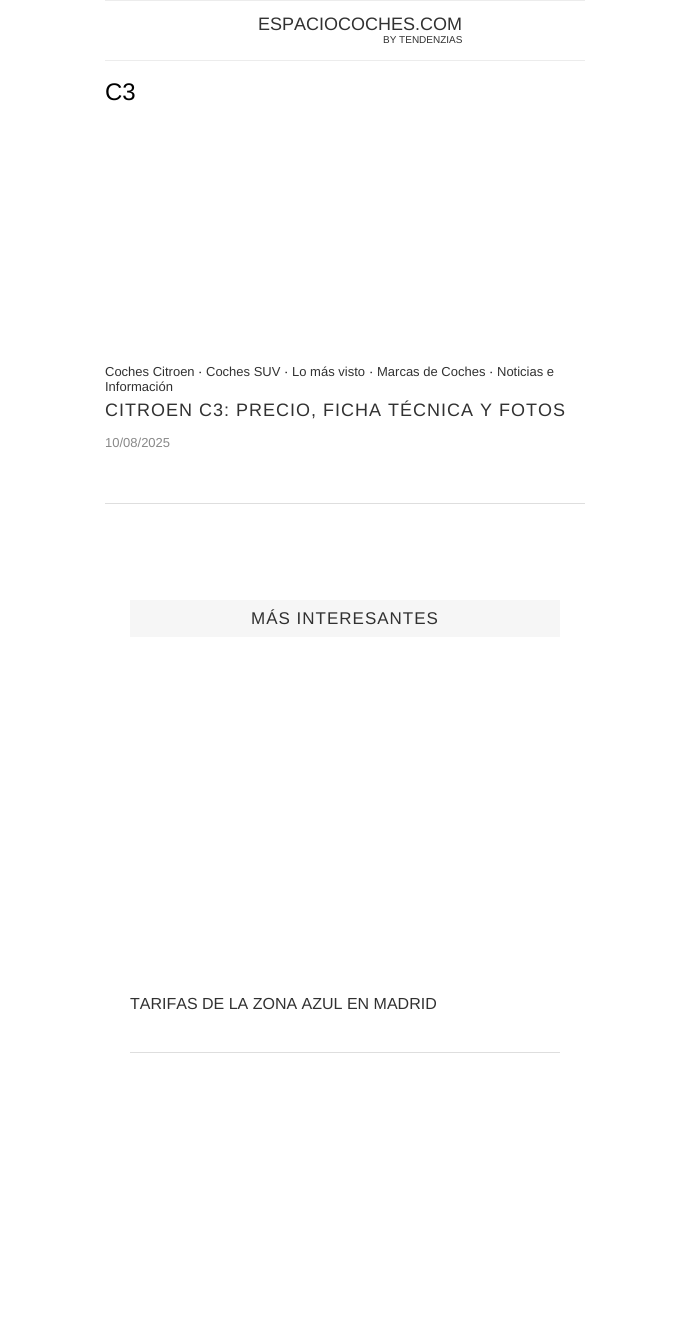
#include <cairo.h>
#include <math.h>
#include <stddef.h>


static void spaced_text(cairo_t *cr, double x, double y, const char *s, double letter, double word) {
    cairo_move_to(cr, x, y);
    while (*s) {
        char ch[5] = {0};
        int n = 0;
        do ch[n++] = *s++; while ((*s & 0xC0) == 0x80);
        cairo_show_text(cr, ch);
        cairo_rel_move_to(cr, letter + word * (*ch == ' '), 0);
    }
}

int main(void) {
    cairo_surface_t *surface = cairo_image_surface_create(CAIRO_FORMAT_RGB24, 690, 1317);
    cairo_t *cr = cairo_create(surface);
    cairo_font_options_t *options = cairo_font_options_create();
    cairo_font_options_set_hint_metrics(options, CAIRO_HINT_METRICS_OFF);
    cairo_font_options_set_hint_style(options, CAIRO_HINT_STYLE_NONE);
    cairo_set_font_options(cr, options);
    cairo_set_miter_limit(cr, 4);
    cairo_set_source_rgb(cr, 1, 1, 1);
    cairo_paint(cr);
    cairo_set_source_rgb(cr, 0.925, 0.925, 0.925);
    cairo_rectangle(cr, 105, 0, 480, 1);
    cairo_fill(cr);
    cairo_rectangle(cr, 105, 60, 480, 1);
    cairo_fill(cr);
    cairo_select_font_face(cr, "Liberation Sans", CAIRO_FONT_SLANT_NORMAL, CAIRO_FONT_WEIGHT_NORMAL);
    cairo_set_font_size(cr, 18);
    cairo_set_source_rgb(cr, 0.192, 0.192, 0.192);
    cairo_move_to(cr, 258, 30);
    cairo_show_text(cr, "ESPACIOCOCHES.COM");
    cairo_set_font_size(cr, 10);
    cairo_move_to(cr, 383, 43);
    cairo_show_text(cr, "BY TENDENZIAS");
    cairo_set_font_size(cr, 24);
    cairo_set_source_rgb(cr, 0, 0, 0);
    cairo_move_to(cr, 105, 100);
    cairo_show_text(cr, "C3");
    cairo_set_source_rgb(cr, 0.871, 0.871, 0.871);
    cairo_rectangle(cr, 105, 503, 480, 1);
    cairo_fill(cr);
    cairo_set_font_size(cr, 13);
    cairo_set_source_rgb(cr, 0.192, 0.192, 0.192);
    cairo_move_to(cr, 105, 376);
    cairo_show_text(cr, "Coches Citroen");
    cairo_set_source_rgb(cr, 0, 0, 0);
    cairo_move_to(cr, 198, 376);
    cairo_show_text(cr, "·");
    cairo_set_source_rgb(cr, 0.192, 0.192, 0.192);
    cairo_move_to(cr, 206, 376);
    cairo_show_text(cr, "Coches SUV");
    cairo_set_source_rgb(cr, 0, 0, 0);
    cairo_move_to(cr, 284, 376);
    cairo_show_text(cr, "·");
    cairo_set_source_rgb(cr, 0.192, 0.192, 0.192);
    cairo_move_to(cr, 292, 376);
    cairo_show_text(cr, "Lo más visto");
    cairo_set_source_rgb(cr, 0, 0, 0);
    cairo_move_to(cr, 369, 376);
    cairo_show_text(cr, "·");
    cairo_set_source_rgb(cr, 0.192, 0.192, 0.192);
    cairo_move_to(cr, 377, 376);
    cairo_show_text(cr, "Marcas de Coches");
    cairo_set_source_rgb(cr, 0, 0, 0);
    cairo_move_to(cr, 489, 376);
    cairo_show_text(cr, "·");
    cairo_set_source_rgb(cr, 0.192, 0.192, 0.192);
    cairo_move_to(cr, 497, 376);
    cairo_show_text(cr, "Noticias e");
    cairo_move_to(cr, 105, 391);
    cairo_show_text(cr, "Información");
    cairo_set_font_size(cr, 18);
    spaced_text(cr, 105, 416, "CITROEN C3: PRECIO, FICHA TÉCNICA Y FOTOS", 1, 0);
    cairo_set_font_size(cr, 13);
    cairo_set_source_rgb(cr, 0.533, 0.533, 0.533);
    cairo_move_to(cr, 105, 447);
    cairo_show_text(cr, "10/08/2025");
    cairo_set_source_rgb(cr, 0.961, 0.961, 0.961);
    cairo_rectangle(cr, 130, 600, 430, 37);
    cairo_fill(cr);
    cairo_set_font_size(cr, 17);
    cairo_set_source_rgb(cr, 0.192, 0.192, 0.192);
    spaced_text(cr, 251, 624, "MÁS INTERESANTES", 1, 0);
    cairo_set_source_rgb(cr, 0.871, 0.871, 0.871);
    cairo_rectangle(cr, 130, 1052, 430, 1);
    cairo_fill(cr);
    cairo_set_font_size(cr, 16);
    cairo_set_source_rgb(cr, 0.192, 0.192, 0.192);
    cairo_move_to(cr, 130, 1009);
    cairo_show_text(cr, "TARIFAS DE LA ZONA AZUL EN MADRID");
    cairo_surface_write_to_png(surface, "page.png");
    cairo_font_options_destroy(options);
    cairo_destroy(cr);
    cairo_surface_destroy(surface);
    return 0;
}
